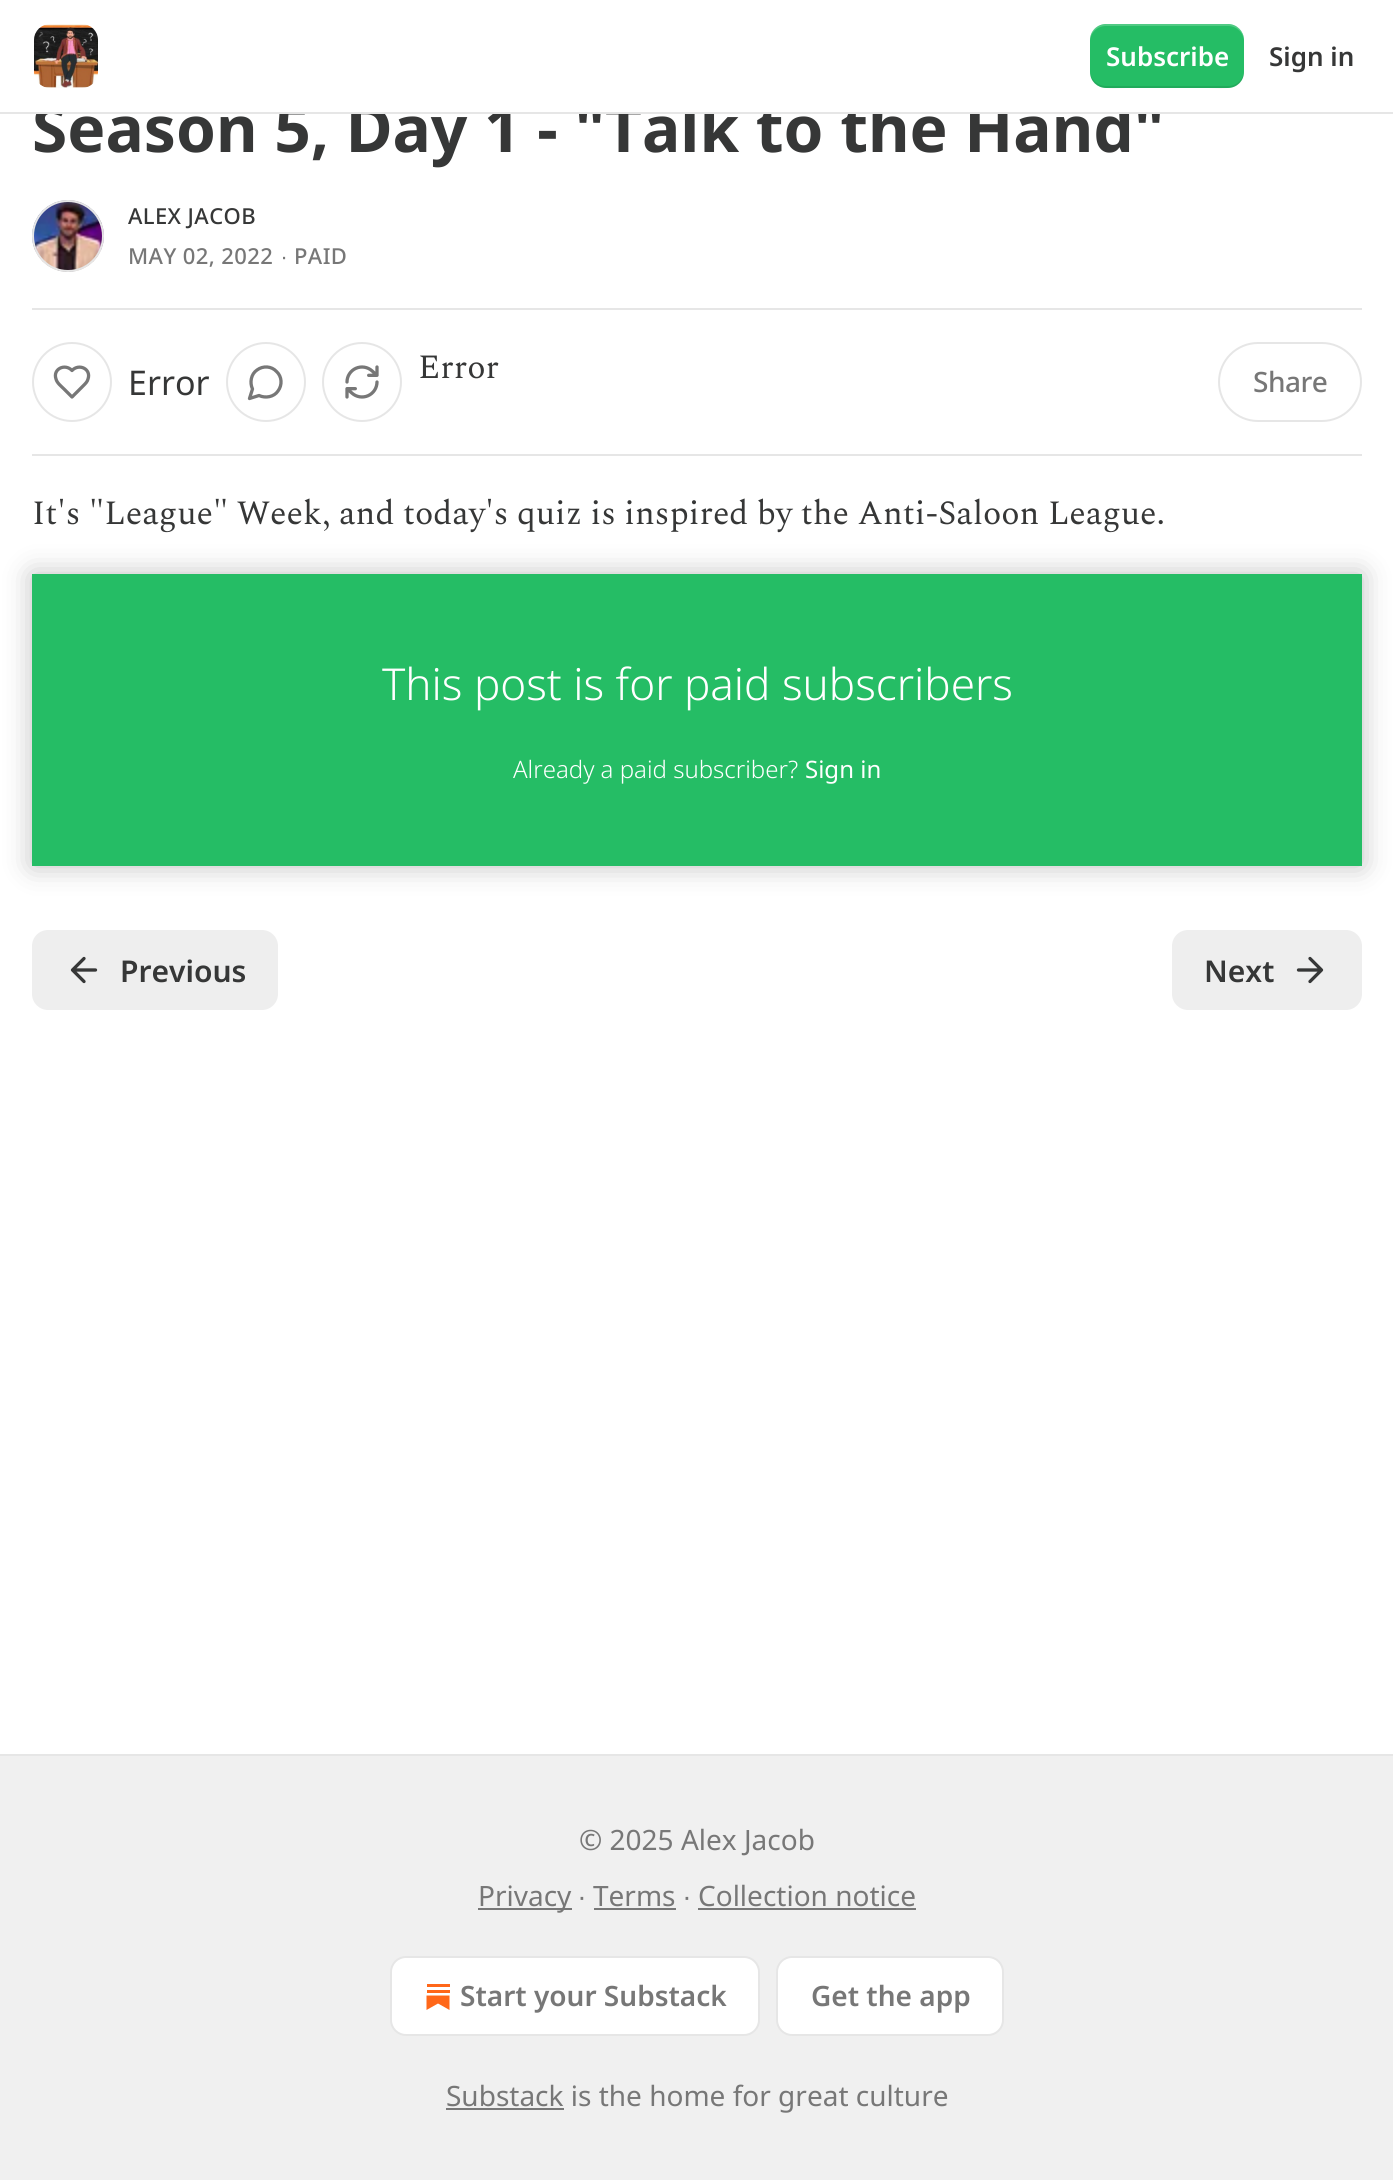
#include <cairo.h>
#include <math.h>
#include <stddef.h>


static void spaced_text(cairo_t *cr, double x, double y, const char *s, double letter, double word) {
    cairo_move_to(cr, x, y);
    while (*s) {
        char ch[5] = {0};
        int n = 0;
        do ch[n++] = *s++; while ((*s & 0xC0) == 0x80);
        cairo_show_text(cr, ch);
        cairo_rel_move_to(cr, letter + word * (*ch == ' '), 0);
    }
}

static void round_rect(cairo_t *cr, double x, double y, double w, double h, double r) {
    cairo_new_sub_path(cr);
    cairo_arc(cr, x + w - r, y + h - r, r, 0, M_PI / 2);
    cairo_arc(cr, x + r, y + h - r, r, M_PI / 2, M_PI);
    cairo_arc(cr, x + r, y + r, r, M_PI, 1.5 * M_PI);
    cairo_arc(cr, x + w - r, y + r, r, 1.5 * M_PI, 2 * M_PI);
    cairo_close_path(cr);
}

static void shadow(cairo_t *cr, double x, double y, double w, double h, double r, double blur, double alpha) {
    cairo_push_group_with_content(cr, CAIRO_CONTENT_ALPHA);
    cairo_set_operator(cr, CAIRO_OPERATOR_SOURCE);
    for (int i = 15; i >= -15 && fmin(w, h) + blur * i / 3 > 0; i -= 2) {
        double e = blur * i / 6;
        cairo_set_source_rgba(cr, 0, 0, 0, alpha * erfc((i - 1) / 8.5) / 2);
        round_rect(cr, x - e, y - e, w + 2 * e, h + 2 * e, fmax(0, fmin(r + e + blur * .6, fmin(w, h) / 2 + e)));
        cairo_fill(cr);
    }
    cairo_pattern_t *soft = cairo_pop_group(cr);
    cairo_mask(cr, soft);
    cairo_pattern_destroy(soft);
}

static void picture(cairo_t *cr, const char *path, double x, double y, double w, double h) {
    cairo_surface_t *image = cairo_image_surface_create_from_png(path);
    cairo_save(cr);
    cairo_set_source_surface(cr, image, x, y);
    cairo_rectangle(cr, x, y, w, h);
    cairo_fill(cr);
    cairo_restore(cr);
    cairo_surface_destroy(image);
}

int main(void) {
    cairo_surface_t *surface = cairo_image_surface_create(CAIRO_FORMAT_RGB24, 1393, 2180);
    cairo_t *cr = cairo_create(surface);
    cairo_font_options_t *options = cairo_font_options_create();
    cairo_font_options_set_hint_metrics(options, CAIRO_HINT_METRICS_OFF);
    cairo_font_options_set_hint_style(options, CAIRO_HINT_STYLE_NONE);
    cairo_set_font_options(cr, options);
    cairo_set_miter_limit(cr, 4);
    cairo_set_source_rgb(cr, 1, 1, 1);
    cairo_paint(cr);
    cairo_select_font_face(cr, "Noto Sans", CAIRO_FONT_SLANT_NORMAL, CAIRO_FONT_WEIGHT_BOLD);
    cairo_set_font_size(cr, 64);
    cairo_set_source_rgb(cr, 0.212, 0.216, 0.216);
    cairo_move_to(cr, 32, 152);
    cairo_show_text(cr, "Season 5, Day 1 - \"Talk to the Hand\"");
    cairo_set_source_rgb(cr, 1, 1, 1);
    cairo_rectangle(cr, 37, 103, 1124, 9);
    cairo_fill(cr);
    cairo_set_source_rgb(cr, 0.902, 0.902, 0.902);
    cairo_rectangle(cr, 0, 112, 1393, 2);
    cairo_fill(cr);
    picture(cr, "img1.png", 34, 24, 64, 64);
    cairo_set_source_rgb(cr, 0.145, 0.741, 0.396);
    round_rect(cr, 1090, 24, 154, 64, 16);
    cairo_fill(cr);
    cairo_set_source_rgba(cr, 0, 0, 0, 0.1);
    cairo_new_path(cr);
    cairo_move_to(cr, 1090, 70);
    cairo_curve_to(cr, 1090, 92, 1110, 88, 1126, 88);
    cairo_line_to(cr, 1208, 88);
    cairo_curve_to(cr, 1224, 88, 1244, 92, 1244, 70);
    cairo_curve_to(cr, 1244, 79, 1237, 86, 1228, 86);
    cairo_line_to(cr, 1106, 86);
    cairo_curve_to(cr, 1097, 86, 1090, 79, 1090, 70);
    cairo_close_path(cr);
    cairo_fill(cr);
    cairo_set_source_rgba(cr, 1, 1, 1, 0.2);
    cairo_new_path(cr);
    cairo_move_to(cr, 1106, 26);
    cairo_line_to(cr, 1228, 26);
    cairo_curve_to(cr, 1237, 26, 1244, 33, 1244, 42);
    cairo_curve_to(cr, 1244, 20, 1224, 24, 1208, 24);
    cairo_line_to(cr, 1126, 24);
    cairo_curve_to(cr, 1110, 24, 1090, 20, 1090, 42);
    cairo_curve_to(cr, 1090, 33, 1097, 26, 1106, 26);
    cairo_close_path(cr);
    cairo_fill(cr);
    cairo_select_font_face(cr, "Noto Sans SemiBold", CAIRO_FONT_SLANT_NORMAL, CAIRO_FONT_WEIGHT_NORMAL);
    cairo_set_font_size(cr, 26);
    cairo_set_source_rgb(cr, 1, 1, 1);
    cairo_move_to(cr, 1106, 66);
    cairo_show_text(cr, "Subscribe");
    cairo_set_source_rgb(cr, 0.212, 0.216, 0.216);
    cairo_move_to(cr, 1269, 66);
    cairo_show_text(cr, "Sign in");
    cairo_new_path(cr);
    cairo_arc(cr, 68, 236, 35, 0, 2 * M_PI);
    cairo_set_source_rgb(cr, 0.902, 0.902, 0.902);
    cairo_stroke(cr);
    picture(cr, "img2.png", 32, 200, 72, 72);
    cairo_arc(cr, 68, 236, 35, 0, 2 * M_PI);
    cairo_stroke(cr);
    cairo_select_font_face(cr, "Noto Sans Medium", CAIRO_FONT_SLANT_NORMAL, CAIRO_FONT_WEIGHT_NORMAL);
    cairo_set_font_size(cr, 22);
    cairo_set_source_rgb(cr, 0.212, 0.216, 0.216);
    spaced_text(cr, 128, 224, "ALEX JACOB", 0.4, 0);
    cairo_set_source_rgb(cr, 0.467, 0.467, 0.467);
    spaced_text(cr, 128, 264, "MAY 02, 2022", 0.4, 0);
    cairo_select_font_face(cr, "Liberation Sans", CAIRO_FONT_SLANT_NORMAL, CAIRO_FONT_WEIGHT_NORMAL);
    spaced_text(cr, 281, 264, "∙", 0.4, 0);
    cairo_select_font_face(cr, "Noto Sans Medium", CAIRO_FONT_SLANT_NORMAL, CAIRO_FONT_WEIGHT_NORMAL);
    spaced_text(cr, 294, 264, "PAID", 0.4, 0);
    cairo_set_source_rgb(cr, 0.902, 0.902, 0.902);
    cairo_rectangle(cr, 32, 308, 1330, 2);
    cairo_fill(cr);
    cairo_rectangle(cr, 32, 454, 1330, 2);
    cairo_fill(cr);
    cairo_arc(cr, 266, 382, 39, 0, 2 * M_PI);
    cairo_stroke(cr);
    cairo_new_path(cr);
    cairo_move_to(cr, 259, 395.5);
    cairo_curve_to(cr, 265.5, 398.5, 274, 397, 278, 391);
    cairo_curve_to(cr, 282.5, 385, 282, 376.5, 276.5, 371.5);
    cairo_curve_to(cr, 271.5, 366, 263, 365.5, 257, 370);
    cairo_curve_to(cr, 251, 374, 249.5, 382.5, 252.5, 389);
    cairo_line_to(cr, 249.5, 398.5);
    cairo_close_path(cr);
    cairo_set_source_rgb(cr, 0.467, 0.467, 0.467);
    cairo_set_line_width(cr, 3.3);
    cairo_set_line_cap(cr, CAIRO_LINE_CAP_ROUND);
    cairo_set_line_join(cr, CAIRO_LINE_JOIN_ROUND);
    cairo_stroke(cr);
    cairo_arc(cr, 362, 382, 39, 0, 2 * M_PI);
    cairo_set_source_rgb(cr, 0.902, 0.902, 0.902);
    cairo_set_line_width(cr, 2);
    cairo_set_line_cap(cr, CAIRO_LINE_CAP_BUTT);
    cairo_set_line_join(cr, CAIRO_LINE_JOIN_MITER);
    cairo_stroke(cr);
    picture(cr, "img3.png", 345, 365, 34, 34);
    cairo_select_font_face(cr, "Spectral", CAIRO_FONT_SLANT_NORMAL, CAIRO_FONT_WEIGHT_NORMAL);
    cairo_set_font_size(cr, 34);
    cairo_set_source_rgb(cr, 0.212, 0.216, 0.216);
    cairo_move_to(cr, 418, 378);
    cairo_show_text(cr, "Error");
    cairo_new_path(cr);
    cairo_arc(cr, 72, 382, 39, 0, 2 * M_PI);
    cairo_set_source_rgb(cr, 0.902, 0.902, 0.902);
    cairo_stroke(cr);
    cairo_new_path(cr);
    cairo_move_to(cr, 83.5, 385.5);
    cairo_curve_to(cr, 85.5, 383.5, 87.5, 381.5, 88, 379);
    cairo_curve_to(cr, 91.5, 369, 79, 363, 72, 370.5);
    cairo_curve_to(cr, 65, 363, 52.5, 369, 56, 379);
    cairo_curve_to(cr, 57, 383, 61, 386, 64, 389);
    cairo_line_to(cr, 72, 397);
    cairo_close_path(cr);
    cairo_set_source_rgb(cr, 0.467, 0.467, 0.467);
    cairo_set_line_width(cr, 3.3);
    cairo_set_line_cap(cr, CAIRO_LINE_CAP_ROUND);
    cairo_set_line_join(cr, CAIRO_LINE_JOIN_ROUND);
    cairo_stroke(cr);
    cairo_select_font_face(cr, "Noto Sans", CAIRO_FONT_SLANT_NORMAL, CAIRO_FONT_WEIGHT_NORMAL);
    cairo_set_source_rgb(cr, 0.212, 0.216, 0.216);
    cairo_move_to(cr, 128, 395);
    cairo_show_text(cr, "Error");
    round_rect(cr, 1219, 343, 142, 78, 39);
    cairo_set_source_rgb(cr, 0.902, 0.902, 0.902);
    cairo_set_line_width(cr, 2);
    cairo_set_line_cap(cr, CAIRO_LINE_CAP_BUTT);
    cairo_set_line_join(cr, CAIRO_LINE_JOIN_MITER);
    cairo_stroke(cr);
    cairo_select_font_face(cr, "Noto Sans Medium", CAIRO_FONT_SLANT_NORMAL, CAIRO_FONT_WEIGHT_NORMAL);
    cairo_set_font_size(cr, 28);
    cairo_set_source_rgb(cr, 0.467, 0.467, 0.467);
    spaced_text(cr, 1253, 392, "Share", -0.5, 0);
    cairo_select_font_face(cr, "Spectral", CAIRO_FONT_SLANT_NORMAL, CAIRO_FONT_WEIGHT_NORMAL);
    cairo_set_font_size(cr, 34);
    cairo_set_source_rgb(cr, 0.212, 0.216, 0.216);
    cairo_move_to(cr, 32, 524);
    cairo_show_text(cr, "It's \"League\" Week, and today's quiz is inspired by the Anti-Saloon League.");
    cairo_set_source_rgb(cr, 0.145, 0.741, 0.396);
    cairo_rectangle(cr, 32, 574, 1330, 292);
    cairo_fill(cr);
    cairo_save(cr);
    cairo_set_fill_rule(cr, CAIRO_FILL_RULE_EVEN_ODD);
    cairo_new_path(cr);
    cairo_move_to(cr, 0, 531);
    cairo_line_to(cr, 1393, 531);
    cairo_line_to(cr, 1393, 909);
    cairo_line_to(cr, 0, 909);
    cairo_close_path(cr);
    cairo_move_to(cr, 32, 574);
    cairo_line_to(cr, 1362, 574);
    cairo_line_to(cr, 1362, 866);
    cairo_line_to(cr, 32, 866);
    cairo_close_path(cr);
    cairo_clip(cr);
    cairo_set_source_rgb(cr, 0, 0, 0);
    shadow(cr, 32, 574, 1330, 292, 0, 14, 0.25);
    cairo_restore(cr);
    cairo_select_font_face(cr, "Noto Sans Light", CAIRO_FONT_SLANT_NORMAL, CAIRO_FONT_WEIGHT_NORMAL);
    cairo_set_font_size(cr, 44);
    cairo_set_source_rgb(cr, 1, 1, 1);
    cairo_move_to(cr, 382, 700);
    cairo_show_text(cr, "This post is for paid subscribers");
    cairo_set_font_size(cr, 24);
    cairo_move_to(cr, 513, 778);
    cairo_show_text(cr, "Already a paid subscriber?");
    cairo_select_font_face(cr, "Noto Sans", CAIRO_FONT_SLANT_NORMAL, CAIRO_FONT_WEIGHT_NORMAL);
    cairo_move_to(cr, 805, 778);
    cairo_show_text(cr, "Sign in");
    cairo_set_source_rgb(cr, 0.933, 0.933, 0.933);
    round_rect(cr, 32, 930, 246, 80, 16);
    cairo_fill(cr);
    cairo_new_path(cr);
    cairo_move_to(cr, 84, 981.5);
    cairo_line_to(cr, 72.5, 970);
    cairo_line_to(cr, 84, 958.5);
    cairo_move_to(cr, 95.5, 970);
    cairo_line_to(cr, 72.5, 970);
    cairo_set_source_rgb(cr, 0.212, 0.216, 0.216);
    cairo_set_line_width(cr, 3.3);
    cairo_set_line_cap(cr, CAIRO_LINE_CAP_ROUND);
    cairo_set_line_join(cr, CAIRO_LINE_JOIN_ROUND);
    cairo_stroke(cr);
    cairo_select_font_face(cr, "Noto Sans SemiBold", CAIRO_FONT_SLANT_NORMAL, CAIRO_FONT_WEIGHT_NORMAL);
    cairo_set_font_size(cr, 30);
    cairo_move_to(cr, 120, 982);
    cairo_show_text(cr, "Previous");
    cairo_set_source_rgb(cr, 0.933, 0.933, 0.933);
    round_rect(cr, 1172, 930, 190, 80, 16);
    cairo_fill(cr);
    cairo_set_source_rgb(cr, 0.212, 0.216, 0.216);
    cairo_move_to(cr, 1204, 982);
    cairo_show_text(cr, "Next");
    cairo_new_path(cr);
    cairo_move_to(cr, 1298.5, 970);
    cairo_line_to(cr, 1321.5, 970);
    cairo_move_to(cr, 1310, 958.5);
    cairo_line_to(cr, 1321.5, 970);
    cairo_line_to(cr, 1310, 981.5);
    cairo_stroke(cr);
    cairo_set_source_rgb(cr, 0.941, 0.941, 0.941);
    cairo_rectangle(cr, 0, 1756, 1393, 424);
    cairo_fill(cr);
    cairo_set_source_rgb(cr, 0.902, 0.902, 0.902);
    cairo_rectangle(cr, 0, 1754, 1393, 2);
    cairo_fill(cr);
    cairo_select_font_face(cr, "Noto Sans", CAIRO_FONT_SLANT_NORMAL, CAIRO_FONT_WEIGHT_NORMAL);
    cairo_set_font_size(cr, 28);
    cairo_set_source_rgb(cr, 0.467, 0.467, 0.467);
    cairo_move_to(cr, 579, 1850);
    cairo_show_text(cr, "© 2025 Alex Jacob");
    cairo_rectangle(cr, 478, 1908, 94, 2);
    cairo_fill(cr);
    cairo_move_to(cr, 478, 1906);
    cairo_show_text(cr, "Privacy");
    cairo_select_font_face(cr, "Liberation Sans", CAIRO_FONT_SLANT_NORMAL, CAIRO_FONT_WEIGHT_NORMAL);
    cairo_move_to(cr, 578, 1906);
    cairo_show_text(cr, "∙");
    cairo_select_font_face(cr, "Noto Sans", CAIRO_FONT_SLANT_NORMAL, CAIRO_FONT_WEIGHT_NORMAL);
    cairo_move_to(cr, 593, 1906);
    cairo_show_text(cr, "Terms");
    cairo_rectangle(cr, 594, 1908, 82, 2);
    cairo_fill(cr);
    cairo_select_font_face(cr, "Liberation Sans", CAIRO_FONT_SLANT_NORMAL, CAIRO_FONT_WEIGHT_NORMAL);
    cairo_move_to(cr, 683, 1906);
    cairo_show_text(cr, "∙");
    cairo_select_font_face(cr, "Noto Sans", CAIRO_FONT_SLANT_NORMAL, CAIRO_FONT_WEIGHT_NORMAL);
    cairo_move_to(cr, 698, 1906);
    cairo_show_text(cr, "Collection notice");
    cairo_rectangle(cr, 698, 1908, 218, 2);
    cairo_fill(cr);
    cairo_set_source_rgb(cr, 1, 1, 1);
    round_rect(cr, 391, 1957, 368, 78, 15);
    cairo_fill_preserve(cr);
    cairo_set_source_rgb(cr, 0.902, 0.902, 0.902);
    cairo_set_line_width(cr, 2);
    cairo_set_line_cap(cr, CAIRO_LINE_CAP_BUTT);
    cairo_set_line_join(cr, CAIRO_LINE_JOIN_MITER);
    cairo_stroke(cr);
    cairo_set_source_rgb(cr, 1, 0.404, 0.098);
    cairo_rectangle(cr, 427, 1990, 23, 3);
    cairo_fill(cr);
    cairo_new_path(cr);
    cairo_move_to(cr, 426.5, 1995.5);
    cairo_line_to(cr, 426.5, 2010);
    cairo_line_to(cr, 438, 2003.5);
    cairo_line_to(cr, 449.5, 2010);
    cairo_line_to(cr, 449.5, 1995.5);
    cairo_close_path(cr);
    cairo_fill(cr);
    cairo_rectangle(cr, 427, 1984, 23, 3);
    cairo_fill(cr);
    cairo_select_font_face(cr, "Noto Sans SemiBold", CAIRO_FONT_SLANT_NORMAL, CAIRO_FONT_WEIGHT_NORMAL);
    cairo_set_source_rgb(cr, 0.467, 0.467, 0.467);
    cairo_move_to(cr, 460, 2006);
    cairo_show_text(cr, "Start your Substack");
    cairo_set_source_rgb(cr, 1, 1, 1);
    round_rect(cr, 777, 1957, 226, 78, 15);
    cairo_fill_preserve(cr);
    cairo_set_source_rgb(cr, 0.902, 0.902, 0.902);
    cairo_stroke(cr);
    cairo_set_source_rgb(cr, 0.467, 0.467, 0.467);
    cairo_move_to(cr, 811, 2006);
    cairo_show_text(cr, "Get the app");
    cairo_rectangle(cr, 446, 2108, 118, 2);
    cairo_fill(cr);
    cairo_select_font_face(cr, "Noto Sans", CAIRO_FONT_SLANT_NORMAL, CAIRO_FONT_WEIGHT_NORMAL);
    cairo_move_to(cr, 446, 2106);
    cairo_show_text(cr, "Substack is the home for great culture");
    cairo_surface_write_to_png(surface, "page.png");
    cairo_font_options_destroy(options);
    cairo_destroy(cr);
    cairo_surface_destroy(surface);
    return 0;
}
